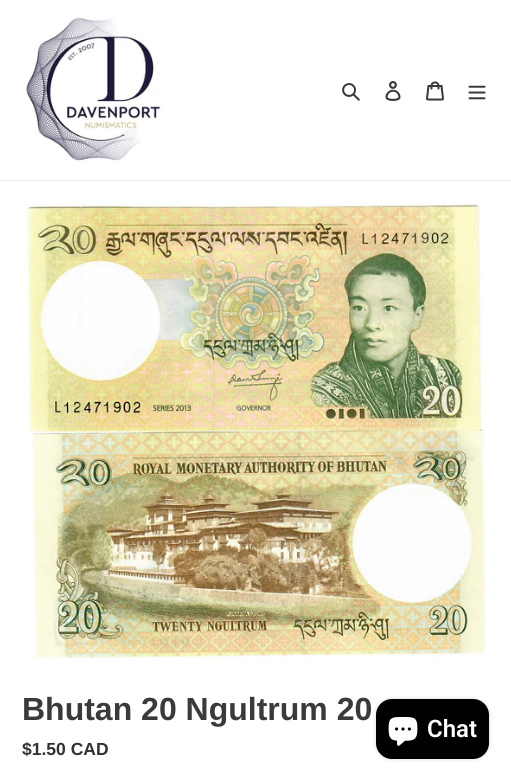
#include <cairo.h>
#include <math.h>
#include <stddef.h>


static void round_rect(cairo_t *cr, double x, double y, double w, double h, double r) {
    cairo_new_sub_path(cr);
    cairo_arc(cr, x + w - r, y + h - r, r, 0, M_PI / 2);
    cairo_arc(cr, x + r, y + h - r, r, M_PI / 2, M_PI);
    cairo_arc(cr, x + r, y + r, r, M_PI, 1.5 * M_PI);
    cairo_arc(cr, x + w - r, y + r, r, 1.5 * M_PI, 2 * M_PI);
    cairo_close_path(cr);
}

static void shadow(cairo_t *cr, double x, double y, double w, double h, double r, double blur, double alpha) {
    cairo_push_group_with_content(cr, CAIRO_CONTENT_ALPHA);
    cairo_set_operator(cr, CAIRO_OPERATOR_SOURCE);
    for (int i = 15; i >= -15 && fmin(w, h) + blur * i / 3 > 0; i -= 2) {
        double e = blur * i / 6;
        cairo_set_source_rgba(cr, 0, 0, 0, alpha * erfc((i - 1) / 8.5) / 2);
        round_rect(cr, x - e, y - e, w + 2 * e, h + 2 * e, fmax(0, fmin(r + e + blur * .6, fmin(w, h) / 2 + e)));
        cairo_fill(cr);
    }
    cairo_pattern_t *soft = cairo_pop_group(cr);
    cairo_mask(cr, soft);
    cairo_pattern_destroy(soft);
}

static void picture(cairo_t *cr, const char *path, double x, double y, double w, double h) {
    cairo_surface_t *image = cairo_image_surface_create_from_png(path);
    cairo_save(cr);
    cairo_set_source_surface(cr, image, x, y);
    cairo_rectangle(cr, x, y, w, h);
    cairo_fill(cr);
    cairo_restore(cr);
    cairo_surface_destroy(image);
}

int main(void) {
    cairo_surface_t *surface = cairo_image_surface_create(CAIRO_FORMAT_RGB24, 511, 780);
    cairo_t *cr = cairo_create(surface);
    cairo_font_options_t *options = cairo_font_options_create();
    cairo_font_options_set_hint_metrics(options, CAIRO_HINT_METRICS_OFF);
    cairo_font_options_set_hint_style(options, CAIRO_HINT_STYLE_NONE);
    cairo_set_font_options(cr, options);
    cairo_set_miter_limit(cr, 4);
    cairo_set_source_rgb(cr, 1, 1, 1);
    cairo_paint(cr);
    cairo_set_source_rgb(cr, 0.922, 0.922, 0.922);
    cairo_rectangle(cr, 0, 180, 511, 1);
    cairo_fill(cr);
    picture(cr, "img1.png", 25, 17, 137, 145);
    picture(cr, "img2.png", 342, 83, 18, 18);
    picture(cr, "img3.png", 385, 81, 16, 20);
    picture(cr, "img4.png", 426, 81, 18, 20);
    picture(cr, "img5.png", 468, 85, 18, 15);
    picture(cr, "img6.png", 27, 203, 459, 457);
    cairo_select_font_face(cr, "Liberation Sans", CAIRO_FONT_SLANT_NORMAL, CAIRO_FONT_WEIGHT_BOLD);
    cairo_set_font_size(cr, 32);
    cairo_set_source_rgb(cr, 0.227, 0.227, 0.227);
    cairo_move_to(cr, 22, 720);
    cairo_show_text(cr, "Bhutan 20 Ngultrum 20");
    cairo_set_font_size(cr, 17.5);
    cairo_set_source_rgb(cr, 0.2, 0.196, 0.196);
    cairo_move_to(cr, 22, 755);
    cairo_show_text(cr, "$1.50 CAD");
    cairo_set_source_rgb(cr, 0, 0, 0);
    shadow(cr, 376, 699, 113, 60, 16, 2.5, 0.15);
    cairo_set_source_rgb(cr, 0, 0, 0);
    round_rect(cr, 376, 699, 113, 60, 16);
    cairo_fill(cr);
    picture(cr, "img7.png", 388, 717, 30, 29);
    cairo_select_font_face(cr, "Roboto SemiBold", CAIRO_FONT_SLANT_NORMAL, CAIRO_FONT_WEIGHT_NORMAL);
    cairo_set_font_size(cr, 24);
    cairo_set_source_rgb(cr, 1, 1, 1);
    cairo_move_to(cr, 427, 737);
    cairo_show_text(cr, "Chat");
    cairo_surface_write_to_png(surface, "page.png");
    cairo_font_options_destroy(options);
    cairo_destroy(cr);
    cairo_surface_destroy(surface);
    return 0;
}
